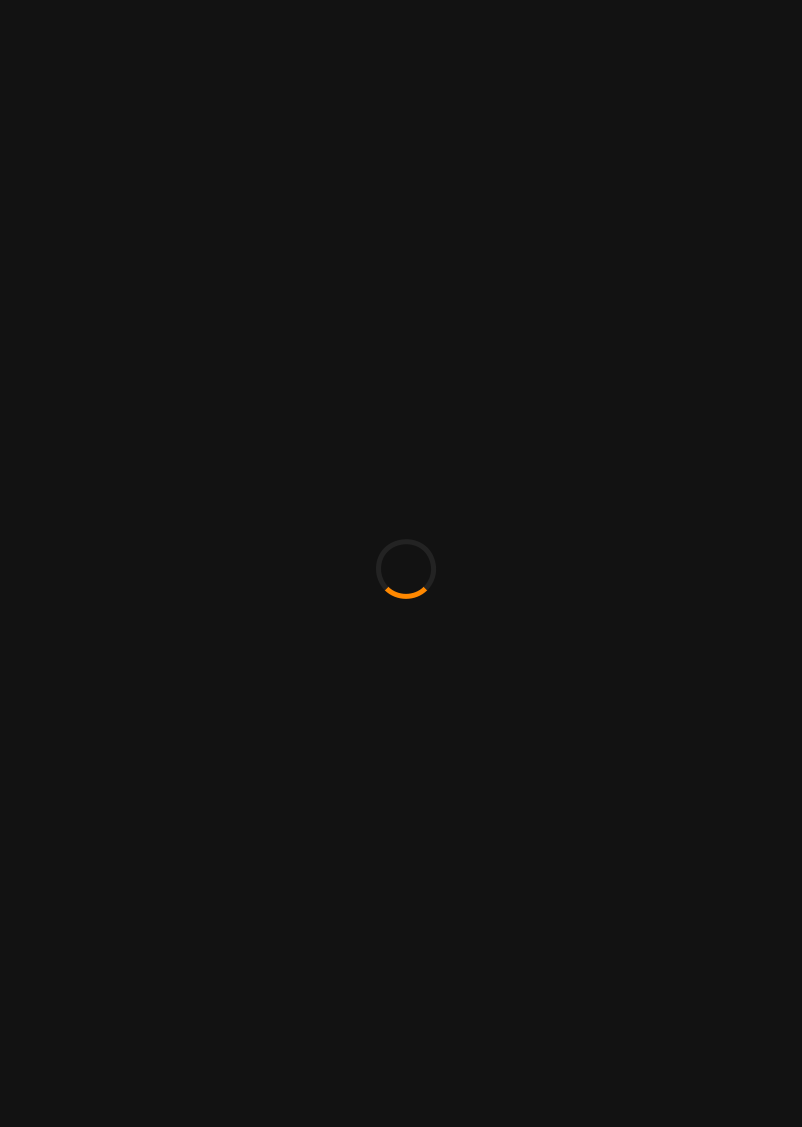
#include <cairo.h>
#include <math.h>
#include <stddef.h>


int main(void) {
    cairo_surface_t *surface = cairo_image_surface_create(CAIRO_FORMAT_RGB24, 802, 1127);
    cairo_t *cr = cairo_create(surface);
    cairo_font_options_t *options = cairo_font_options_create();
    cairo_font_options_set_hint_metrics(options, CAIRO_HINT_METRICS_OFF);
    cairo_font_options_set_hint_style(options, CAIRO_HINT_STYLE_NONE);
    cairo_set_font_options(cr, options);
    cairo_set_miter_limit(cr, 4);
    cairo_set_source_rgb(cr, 0.071, 0.071, 0.071);
    cairo_paint(cr);
    cairo_new_path(cr);
    cairo_move_to(cr, 425.5, 588.5);
    cairo_curve_to(cr, 415, 599, 397, 599, 386.5, 588.5);
    cairo_set_source_rgb(cr, 1, 0.533, 0);
    cairo_set_line_width(cr, 5);
    cairo_stroke(cr);
    cairo_new_path(cr);
    cairo_move_to(cr, 386.5, 588.5);
    cairo_curve_to(cr, 381.5, 583.5, 378.5, 576, 378.5, 569);
    cairo_curve_to(cr, 378.5, 536, 426.5, 531.5, 433, 563.5);
    cairo_curve_to(cr, 435, 572.5, 432, 582, 425.5, 588.5);
    cairo_set_source_rgb(cr, 0.137, 0.137, 0.137);
    cairo_stroke(cr);
    cairo_surface_write_to_png(surface, "page.png");
    cairo_font_options_destroy(options);
    cairo_destroy(cr);
    cairo_surface_destroy(surface);
    return 0;
}
